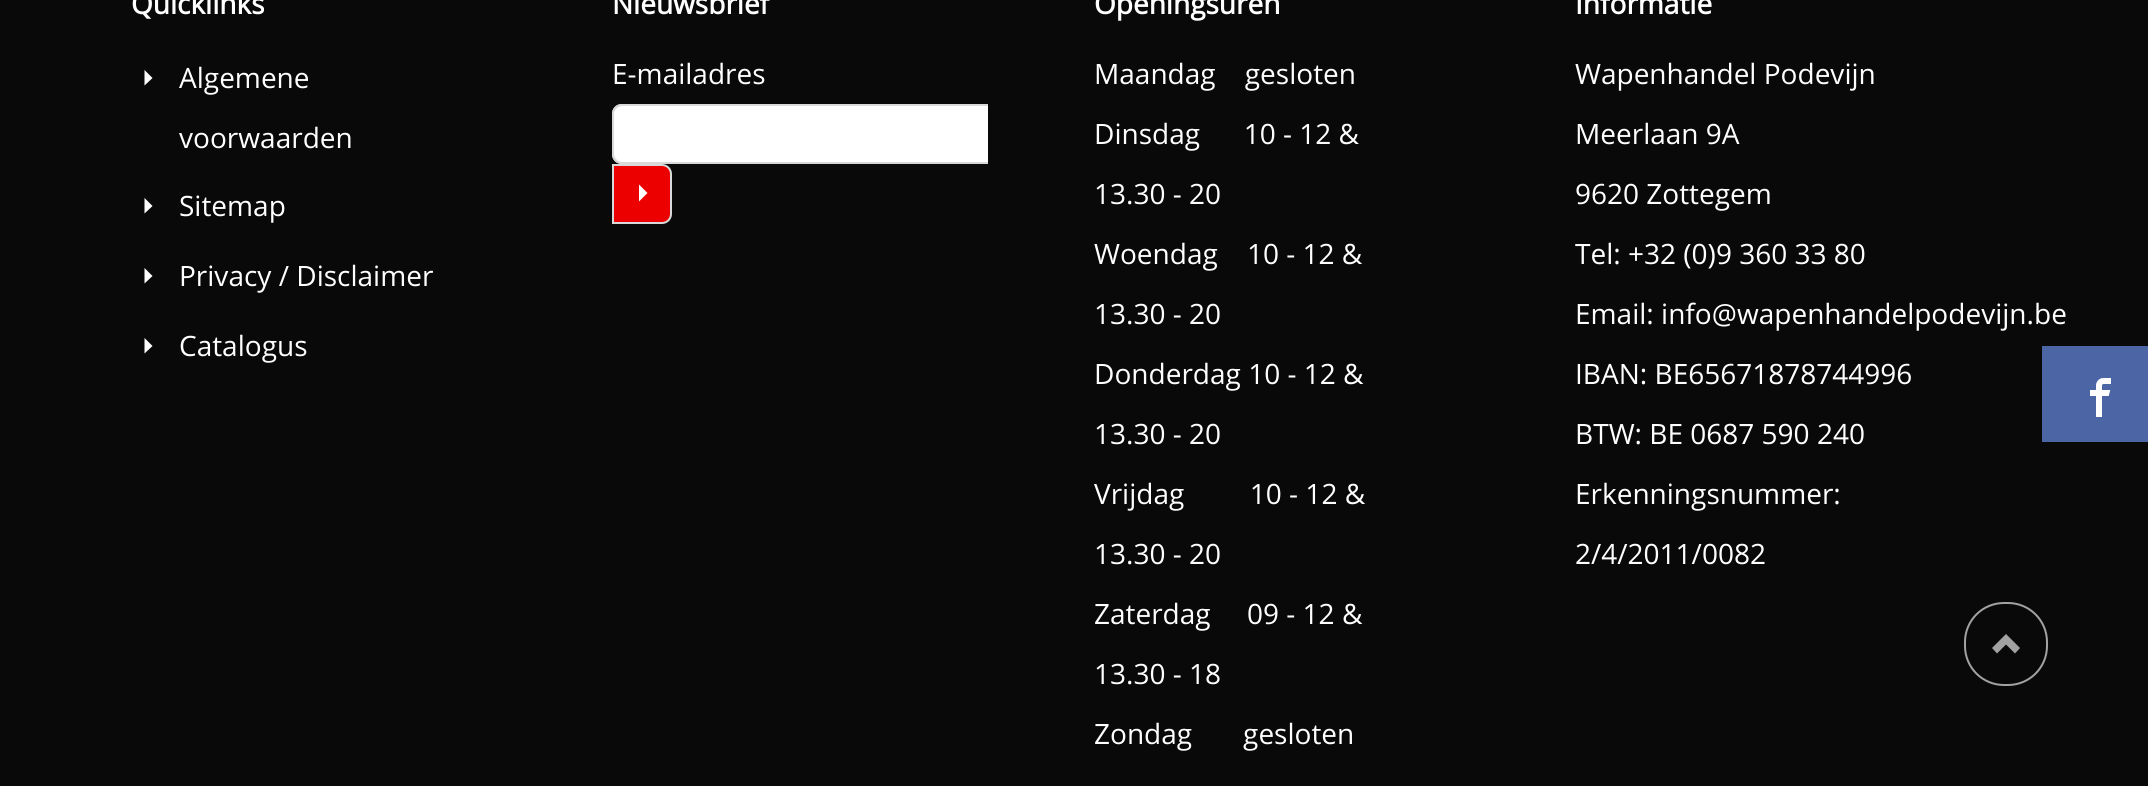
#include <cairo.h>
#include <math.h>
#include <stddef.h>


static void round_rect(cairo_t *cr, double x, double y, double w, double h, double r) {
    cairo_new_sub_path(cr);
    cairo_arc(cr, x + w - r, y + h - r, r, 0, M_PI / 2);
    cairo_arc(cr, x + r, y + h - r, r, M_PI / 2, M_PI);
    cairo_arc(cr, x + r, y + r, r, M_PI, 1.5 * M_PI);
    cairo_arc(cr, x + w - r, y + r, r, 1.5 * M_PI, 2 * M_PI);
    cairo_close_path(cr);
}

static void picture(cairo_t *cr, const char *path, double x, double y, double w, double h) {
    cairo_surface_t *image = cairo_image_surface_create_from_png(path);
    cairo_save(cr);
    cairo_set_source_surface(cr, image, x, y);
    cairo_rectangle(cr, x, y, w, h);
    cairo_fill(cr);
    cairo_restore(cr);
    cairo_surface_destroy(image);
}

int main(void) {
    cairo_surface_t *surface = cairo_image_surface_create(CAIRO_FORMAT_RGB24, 2148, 786);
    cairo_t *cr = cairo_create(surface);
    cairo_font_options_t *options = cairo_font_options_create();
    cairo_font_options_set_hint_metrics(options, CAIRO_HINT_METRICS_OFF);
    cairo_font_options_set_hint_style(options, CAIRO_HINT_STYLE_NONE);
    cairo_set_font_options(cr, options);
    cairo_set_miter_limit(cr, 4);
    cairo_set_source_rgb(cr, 0.039, 0.039, 0.039);
    cairo_paint(cr);
    cairo_select_font_face(cr, "Open Sans", CAIRO_FONT_SLANT_NORMAL, CAIRO_FONT_WEIGHT_BOLD);
    cairo_set_font_size(cr, 28);
    cairo_set_source_rgb(cr, 1, 1, 1);
    cairo_move_to(cr, 131, 14);
    cairo_show_text(cr, "Quicklinks");
    cairo_new_path(cr);
    cairo_move_to(cr, 144.5, 85.5);
    cairo_line_to(cr, 152.5, 78);
    cairo_line_to(cr, 144.5, 70);
    cairo_close_path(cr);
    cairo_fill(cr);
    cairo_select_font_face(cr, "Open Sans", CAIRO_FONT_SLANT_NORMAL, CAIRO_FONT_WEIGHT_NORMAL);
    cairo_move_to(cr, 179, 88);
    cairo_show_text(cr, "Algemene");
    cairo_move_to(cr, 179, 148);
    cairo_show_text(cr, "voorwaarden");
    cairo_new_path(cr);
    cairo_move_to(cr, 144.5, 213.5);
    cairo_line_to(cr, 152.5, 206);
    cairo_line_to(cr, 144.5, 198);
    cairo_close_path(cr);
    cairo_fill(cr);
    cairo_move_to(cr, 179, 216);
    cairo_show_text(cr, "Sitemap");
    cairo_new_path(cr);
    cairo_move_to(cr, 144.5, 283.5);
    cairo_line_to(cr, 152.5, 276);
    cairo_line_to(cr, 144.5, 268);
    cairo_close_path(cr);
    cairo_fill(cr);
    cairo_move_to(cr, 179, 286);
    cairo_show_text(cr, "Privacy / Disclaimer");
    cairo_new_path(cr);
    cairo_move_to(cr, 144.5, 353.5);
    cairo_line_to(cr, 152.5, 346);
    cairo_line_to(cr, 144.5, 338);
    cairo_close_path(cr);
    cairo_fill(cr);
    cairo_move_to(cr, 179, 356);
    cairo_show_text(cr, "Catalogus");
    cairo_select_font_face(cr, "Open Sans", CAIRO_FONT_SLANT_NORMAL, CAIRO_FONT_WEIGHT_BOLD);
    cairo_move_to(cr, 612, 14);
    cairo_show_text(cr, "Nieuwsbrief");
    cairo_select_font_face(cr, "Open Sans", CAIRO_FONT_SLANT_NORMAL, CAIRO_FONT_WEIGHT_NORMAL);
    cairo_move_to(cr, 612, 84);
    cairo_show_text(cr, "E-mailadres");
    cairo_new_path(cr);
    cairo_move_to(cr, 622, 104);
    cairo_line_to(cr, 988, 104);
    cairo_line_to(cr, 988, 164);
    cairo_line_to(cr, 622, 164);
    cairo_curve_to(cr, 616.5, 164, 612, 159.5, 612, 154);
    cairo_line_to(cr, 612, 114);
    cairo_curve_to(cr, 612, 108.5, 616.5, 104, 622, 104);
    cairo_close_path(cr);
    cairo_fill(cr);
    cairo_set_source_rgb(cr, 0.851, 0.851, 0.851);
    cairo_set_fill_rule(cr, CAIRO_FILL_RULE_EVEN_ODD);
    cairo_new_path(cr);
    cairo_move_to(cr, 622, 104);
    cairo_line_to(cr, 988, 104);
    cairo_line_to(cr, 988, 164);
    cairo_line_to(cr, 622, 164);
    cairo_curve_to(cr, 616, 164, 612, 160, 612, 154);
    cairo_line_to(cr, 612, 114);
    cairo_curve_to(cr, 612, 108, 616, 104, 622, 104);
    cairo_close_path(cr);
    cairo_move_to(cr, 622, 106);
    cairo_line_to(cr, 988, 106);
    cairo_line_to(cr, 988, 162);
    cairo_line_to(cr, 622, 162);
    cairo_curve_to(cr, 618, 162, 614, 158, 614, 154);
    cairo_line_to(cr, 614, 114);
    cairo_curve_to(cr, 614, 110, 618, 106, 622, 106);
    cairo_close_path(cr);
    cairo_fill(cr);
    cairo_set_source_rgb(cr, 0.922, 0, 0);
    cairo_new_path(cr);
    cairo_move_to(cr, 613, 165);
    cairo_line_to(cr, 662, 165);
    cairo_curve_to(cr, 667, 165, 671, 169, 671, 174);
    cairo_line_to(cr, 671, 214);
    cairo_curve_to(cr, 671, 219, 667, 223, 662, 223);
    cairo_line_to(cr, 613, 223);
    cairo_close_path(cr);
    cairo_fill_preserve(cr);
    cairo_set_source_rgb(cr, 0.851, 0.851, 0.851);
    cairo_stroke(cr);
    cairo_set_source_rgb(cr, 1, 1, 1);
    cairo_set_fill_rule(cr, CAIRO_FILL_RULE_WINDING);
    cairo_new_path(cr);
    cairo_move_to(cr, 639, 201.5);
    cairo_line_to(cr, 647.5, 193);
    cairo_line_to(cr, 639, 184.5);
    cairo_close_path(cr);
    cairo_fill(cr);
    cairo_select_font_face(cr, "Open Sans", CAIRO_FONT_SLANT_NORMAL, CAIRO_FONT_WEIGHT_BOLD);
    cairo_move_to(cr, 1094, 14);
    cairo_show_text(cr, "Openingsuren");
    cairo_select_font_face(cr, "Open Sans", CAIRO_FONT_SLANT_NORMAL, CAIRO_FONT_WEIGHT_NORMAL);
    cairo_move_to(cr, 1094, 84);
    cairo_show_text(cr, "Maandag    gesloten");
    cairo_move_to(cr, 1094, 144);
    cairo_show_text(cr, "Dinsdag      10 - 12 &");
    cairo_move_to(cr, 1094, 204);
    cairo_show_text(cr, "13.30 - 20");
    cairo_move_to(cr, 1094, 264);
    cairo_show_text(cr, "Woendag    10 - 12 &");
    cairo_move_to(cr, 1094, 324);
    cairo_show_text(cr, "13.30 - 20");
    cairo_move_to(cr, 1094, 384);
    cairo_show_text(cr, "Donderdag 10 - 12 &");
    cairo_move_to(cr, 1094, 444);
    cairo_show_text(cr, "13.30 - 20");
    cairo_move_to(cr, 1094, 504);
    cairo_show_text(cr, "Vrijdag         10 - 12 &");
    cairo_move_to(cr, 1094, 564);
    cairo_show_text(cr, "13.30 - 20");
    cairo_move_to(cr, 1094, 624);
    cairo_show_text(cr, "Zaterdag     09 - 12 &");
    cairo_move_to(cr, 1094, 684);
    cairo_show_text(cr, "13.30 - 18");
    cairo_move_to(cr, 1094, 744);
    cairo_show_text(cr, "Zondag       gesloten");
    cairo_select_font_face(cr, "Open Sans", CAIRO_FONT_SLANT_NORMAL, CAIRO_FONT_WEIGHT_BOLD);
    cairo_move_to(cr, 1575, 14);
    cairo_show_text(cr, "Informatie");
    cairo_select_font_face(cr, "Open Sans", CAIRO_FONT_SLANT_NORMAL, CAIRO_FONT_WEIGHT_NORMAL);
    cairo_move_to(cr, 1575, 84);
    cairo_show_text(cr, "Wapenhandel Podevijn");
    cairo_move_to(cr, 1575, 144);
    cairo_show_text(cr, "Meerlaan 9A");
    cairo_move_to(cr, 1575, 204);
    cairo_show_text(cr, "9620 Zottegem");
    cairo_move_to(cr, 1575, 264);
    cairo_show_text(cr, "Tel: +32 (0)9 360 33 80");
    cairo_move_to(cr, 1575, 324);
    cairo_show_text(cr, "Email: info@wapenhandelpodevijn.be");
    cairo_move_to(cr, 1575, 384);
    cairo_show_text(cr, "IBAN: BE65671878744996");
    cairo_move_to(cr, 1575, 444);
    cairo_show_text(cr, "BTW: BE 0687 590 240");
    cairo_move_to(cr, 1575, 504);
    cairo_show_text(cr, "Erkenningsnummer:");
    cairo_move_to(cr, 1575, 564);
    cairo_show_text(cr, "2/4/2011/0082");
    cairo_set_source_rgb(cr, 0.298, 0.396, 0.647);
    cairo_rectangle(cr, 2042, 346, 106, 96);
    cairo_fill(cr);
    picture(cr, "img1.png", 2090, 378, 21, 39);
    round_rect(cr, 1965, 603, 82, 82, 39);
    cairo_set_source_rgb(cr, 0.635, 0.635, 0.635);
    cairo_stroke(cr);
    cairo_new_path(cr);
    cairo_move_to(cr, 1992, 648);
    cairo_line_to(cr, 1997, 653.5);
    cairo_line_to(cr, 2006, 644.5);
    cairo_line_to(cr, 2015, 653.5);
    cairo_line_to(cr, 2020, 648);
    cairo_line_to(cr, 2006, 634);
    cairo_close_path(cr);
    cairo_fill(cr);
    cairo_surface_write_to_png(surface, "page.png");
    cairo_font_options_destroy(options);
    cairo_destroy(cr);
    cairo_surface_destroy(surface);
    return 0;
}
